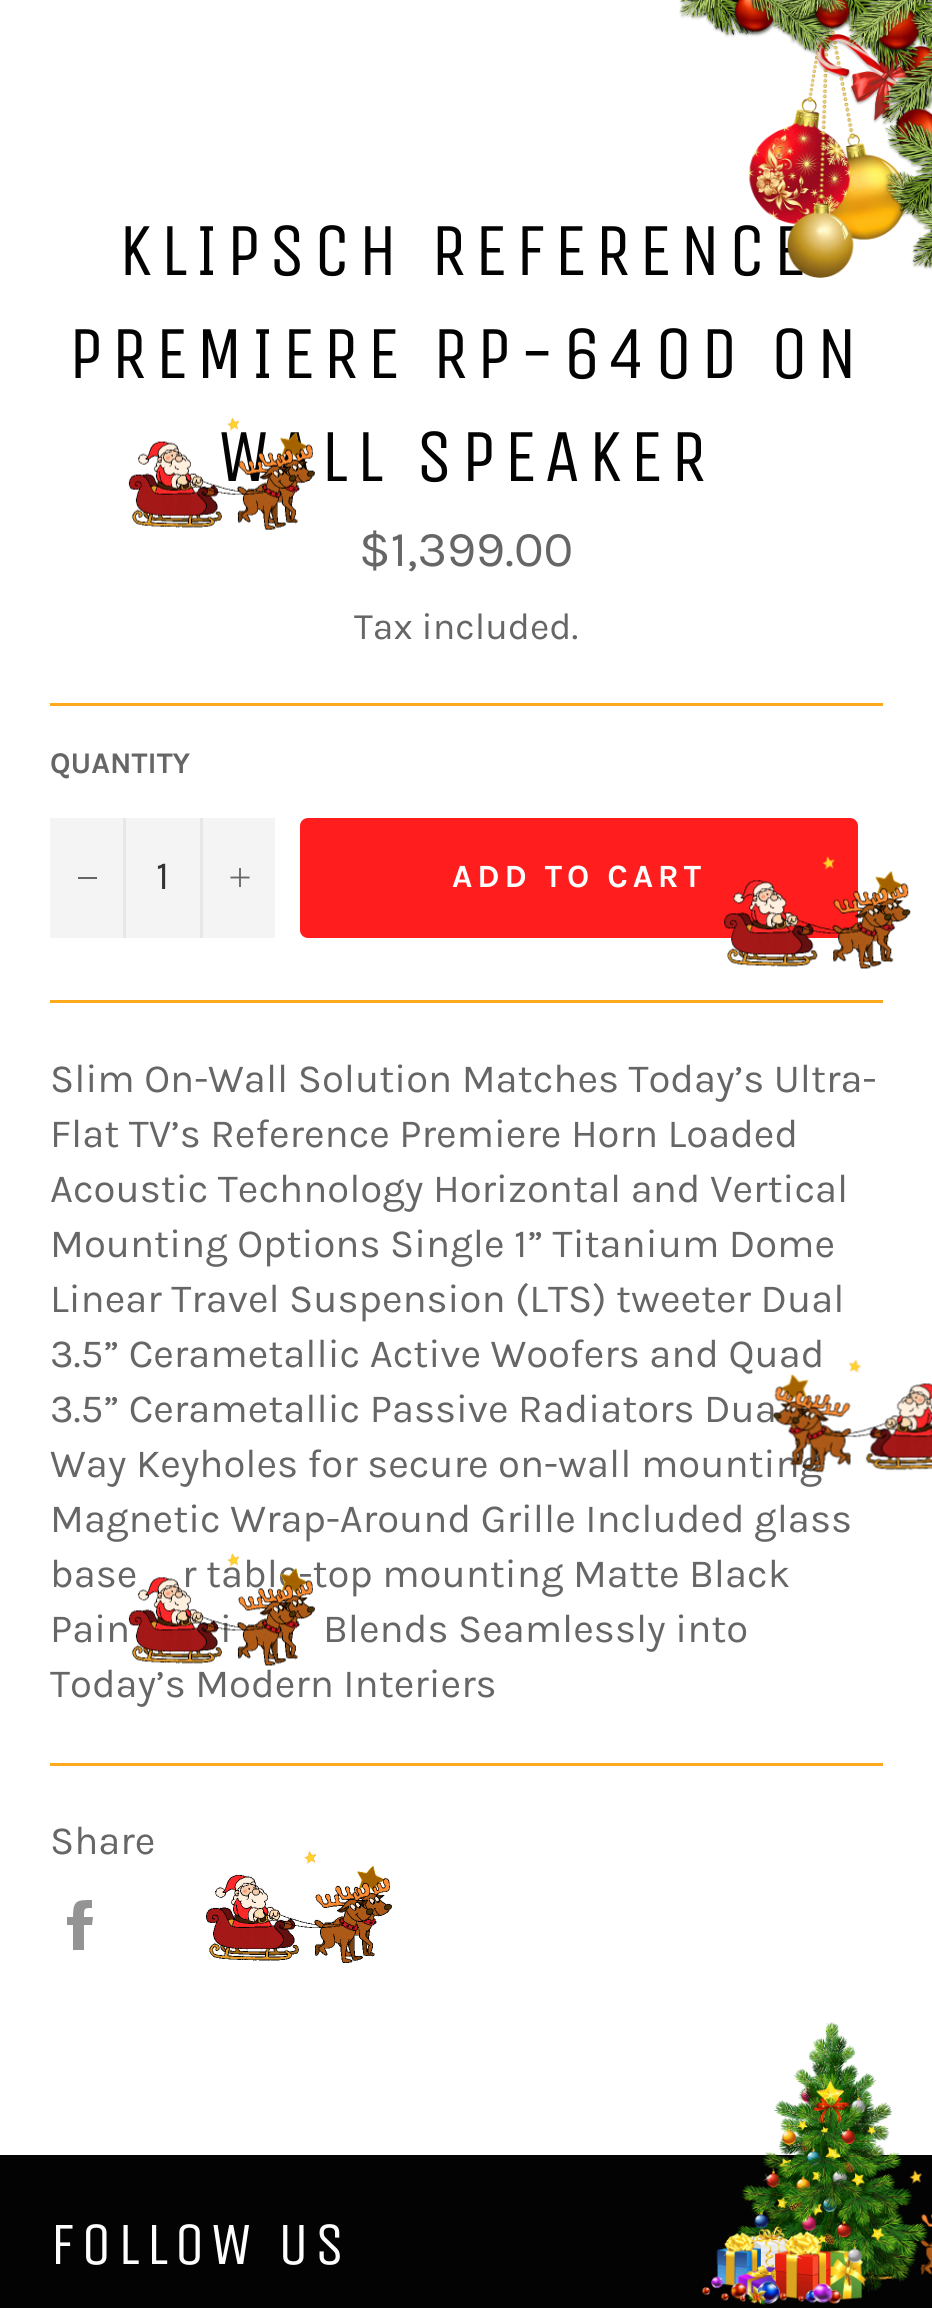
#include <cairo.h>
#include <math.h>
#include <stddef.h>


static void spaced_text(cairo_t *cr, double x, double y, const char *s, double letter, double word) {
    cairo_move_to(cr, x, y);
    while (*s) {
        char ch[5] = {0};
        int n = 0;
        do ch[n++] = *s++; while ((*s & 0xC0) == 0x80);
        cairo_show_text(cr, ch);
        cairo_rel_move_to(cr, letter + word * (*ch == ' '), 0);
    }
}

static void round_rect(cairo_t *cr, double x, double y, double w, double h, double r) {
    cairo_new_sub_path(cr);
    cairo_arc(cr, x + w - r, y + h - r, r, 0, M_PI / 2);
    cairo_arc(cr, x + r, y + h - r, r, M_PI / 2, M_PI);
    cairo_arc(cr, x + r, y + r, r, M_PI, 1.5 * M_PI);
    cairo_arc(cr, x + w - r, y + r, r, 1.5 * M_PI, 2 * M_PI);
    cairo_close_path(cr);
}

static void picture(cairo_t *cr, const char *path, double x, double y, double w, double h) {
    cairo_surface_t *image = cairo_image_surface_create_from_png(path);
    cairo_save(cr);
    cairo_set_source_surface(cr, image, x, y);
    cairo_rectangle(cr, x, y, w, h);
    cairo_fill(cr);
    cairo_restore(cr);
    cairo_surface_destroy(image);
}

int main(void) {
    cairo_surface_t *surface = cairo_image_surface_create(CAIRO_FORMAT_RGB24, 932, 2308);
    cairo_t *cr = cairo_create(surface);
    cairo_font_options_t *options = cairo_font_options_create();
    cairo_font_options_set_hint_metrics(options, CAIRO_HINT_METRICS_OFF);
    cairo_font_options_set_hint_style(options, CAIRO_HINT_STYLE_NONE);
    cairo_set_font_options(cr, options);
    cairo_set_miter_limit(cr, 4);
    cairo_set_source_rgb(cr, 1, 1, 1);
    cairo_paint(cr);
    cairo_select_font_face(cr, "Unica One", CAIRO_FONT_SLANT_NORMAL, CAIRO_FONT_WEIGHT_NORMAL);
    cairo_set_font_size(cr, 75);
    cairo_set_source_rgb(cr, 0.012, 0.012, 0.012);
    spaced_text(cr, 118, 275, "KLIPSCH REFERENCE", 7.5, 0);
    picture(cr, "img2.png", 748, 25, 159, 253);
    picture(cr, "img1.png", 679, 0, 253, 270);
    spaced_text(cr, 68, 378, "PREMIERE RP-640D ON", 7.5, 0);
    spaced_text(cr, 218, 481, "WALL SPEAKER", 7.5, 0);
    cairo_select_font_face(cr, "Karla", CAIRO_FONT_SLANT_NORMAL, CAIRO_FONT_WEIGHT_NORMAL);
    cairo_set_font_size(cr, 50);
    cairo_set_source_rgb(cr, 0.4, 0.4, 0.4);
    cairo_move_to(cr, 359, 566);
    cairo_show_text(cr, "$1,399.00");
    cairo_set_font_size(cr, 37.5);
    cairo_move_to(cr, 354, 639);
    cairo_show_text(cr, "Tax included.");
    cairo_set_source_rgb(cr, 1, 0.667, 0.114);
    cairo_rectangle(cr, 50, 703, 833, 3);
    cairo_fill(cr);
    cairo_select_font_face(cr, "Karla", CAIRO_FONT_SLANT_NORMAL, CAIRO_FONT_WEIGHT_BOLD);
    cairo_set_font_size(cr, 30);
    cairo_set_source_rgb(cr, 0.4, 0.4, 0.4);
    cairo_move_to(cr, 50, 773);
    cairo_show_text(cr, "QUANTITY");
    cairo_set_source_rgb(cr, 0.957, 0.957, 0.957);
    cairo_rectangle(cr, 50, 818, 225, 120);
    cairo_fill(cr);
    cairo_set_source_rgb(cr, 0.906, 0.906, 0.906);
    cairo_rectangle(cr, 123, 818, 3, 120);
    cairo_fill(cr);
    cairo_set_source_rgb(cr, 0.4, 0.4, 0.4);
    cairo_rectangle(cr, 78, 877, 19, 2);
    cairo_fill(cr);
    cairo_select_font_face(cr, "Karla", CAIRO_FONT_SLANT_NORMAL, CAIRO_FONT_WEIGHT_NORMAL);
    cairo_set_font_size(cr, 40);
    cairo_set_source_rgb(cr, 0.2, 0.2, 0.2);
    cairo_move_to(cr, 156, 889);
    cairo_show_text(cr, "1");
    cairo_set_source_rgb(cr, 0.906, 0.906, 0.906);
    cairo_rectangle(cr, 200, 818, 3, 120);
    cairo_fill(cr);
    picture(cr, "img3.png", 230, 868, 20, 20);
    cairo_set_source_rgb(cr, 1, 0.114, 0.114);
    round_rect(cr, 300, 818, 558, 120, 8);
    cairo_fill(cr);
    cairo_select_font_face(cr, "Karla", CAIRO_FONT_SLANT_NORMAL, CAIRO_FONT_WEIGHT_BOLD);
    cairo_set_font_size(cr, 32.5);
    cairo_set_source_rgb(cr, 1, 1, 1);
    spaced_text(cr, 452, 887, "ADD TO CART", 4.9, 0);
    cairo_set_source_rgb(cr, 1, 0.667, 0.114);
    cairo_rectangle(cr, 50, 1000, 833, 3);
    cairo_fill(cr);
    cairo_select_font_face(cr, "Karla", CAIRO_FONT_SLANT_NORMAL, CAIRO_FONT_WEIGHT_NORMAL);
    cairo_set_font_size(cr, 40);
    cairo_set_source_rgb(cr, 0.4, 0.4, 0.4);
    cairo_move_to(cr, 50, 1092);
    cairo_show_text(cr, "Slim On-Wall Solution Matches Today’s Ultra-");
    cairo_move_to(cr, 50, 1147);
    cairo_show_text(cr, "Flat TV’s Reference Premiere Horn Loaded");
    cairo_move_to(cr, 50, 1202);
    cairo_show_text(cr, "Acoustic Technology Horizontal and Vertical");
    cairo_move_to(cr, 50, 1257);
    cairo_show_text(cr, "Mounting Options Single 1” Titanium Dome");
    cairo_move_to(cr, 50, 1312);
    cairo_show_text(cr, "Linear Travel Suspension (LTS) tweeter Dual");
    cairo_move_to(cr, 50, 1367);
    cairo_show_text(cr, "3.5” Cerametallic Active Woofers and Quad");
    cairo_move_to(cr, 50, 1422);
    cairo_show_text(cr, "3.5” Cerametallic Passive Radiators Dua");
    cairo_move_to(cr, 50, 1477);
    cairo_show_text(cr, "Way Keyholes for secure on-wall mounting");
    cairo_move_to(cr, 50, 1532);
    cairo_show_text(cr, "Magnetic Wrap-Around Grille Included glass");
    cairo_move_to(cr, 50, 1587);
    cairo_show_text(cr, "base");
    cairo_move_to(cr, 182, 1587);
    cairo_show_text(cr, "r table-top mounting Matte Black");
    cairo_move_to(cr, 50, 1642);
    cairo_show_text(cr, "Pain");
    cairo_move_to(cr, 220, 1642);
    cairo_show_text(cr, "i");
    cairo_move_to(cr, 323, 1642);
    cairo_show_text(cr, "Blends Seamlessly into");
    cairo_move_to(cr, 50, 1697);
    cairo_show_text(cr, "Today’s Modern Interiers");
    cairo_set_source_rgb(cr, 1, 0.667, 0.114);
    cairo_rectangle(cr, 50, 1763, 833, 3);
    cairo_fill(cr);
    cairo_set_source_rgb(cr, 0.4, 0.4, 0.4);
    cairo_move_to(cr, 50, 1854);
    cairo_show_text(cr, "Share");
    cairo_set_source_rgb(cr, 0.58, 0.58, 0.58);
    cairo_new_path(cr);
    cairo_move_to(cr, 84, 1917);
    cairo_curve_to(cr, 84, 1908, 84, 1908, 92, 1908);
    cairo_line_to(cr, 92, 1900);
    cairo_curve_to(cr, 77, 1900, 73, 1900, 73, 1917);
    cairo_line_to(cr, 67, 1917);
    cairo_line_to(cr, 67, 1925);
    cairo_line_to(cr, 73, 1925);
    cairo_line_to(cr, 73, 1950);
    cairo_line_to(cr, 84, 1950);
    cairo_line_to(cr, 84, 1925);
    cairo_line_to(cr, 92, 1925);
    cairo_line_to(cr, 93, 1917);
    cairo_close_path(cr);
    cairo_fill(cr);
    cairo_set_source_rgb(cr, 0.012, 0.012, 0.012);
    cairo_rectangle(cr, 0, 2155, 932, 153);
    cairo_fill(cr);
    cairo_select_font_face(cr, "Unica One", CAIRO_FONT_SLANT_NORMAL, CAIRO_FONT_WEIGHT_NORMAL);
    cairo_set_font_size(cr, 60);
    cairo_set_source_rgb(cr, 1, 1, 1);
    spaced_text(cr, 50, 2264, "FOLLOW US", 6, 0);
    picture(cr, "img4.png", 128, 417, 187, 113);
    picture(cr, "img5.png", 724, 856, 187, 113);
    picture(cr, "img6.png", 772, 1359, 160, 114);
    picture(cr, "img7.png", 128, 1553, 187, 113);
    picture(cr, "img8.png", 206, 1850, 186, 113);
    picture(cr, "img10.png", 862, 2170, 70, 110);
    picture(cr, "img9.png", 702, 2022, 226, 283);
    cairo_surface_write_to_png(surface, "page.png");
    cairo_font_options_destroy(options);
    cairo_destroy(cr);
    cairo_surface_destroy(surface);
    return 0;
}
